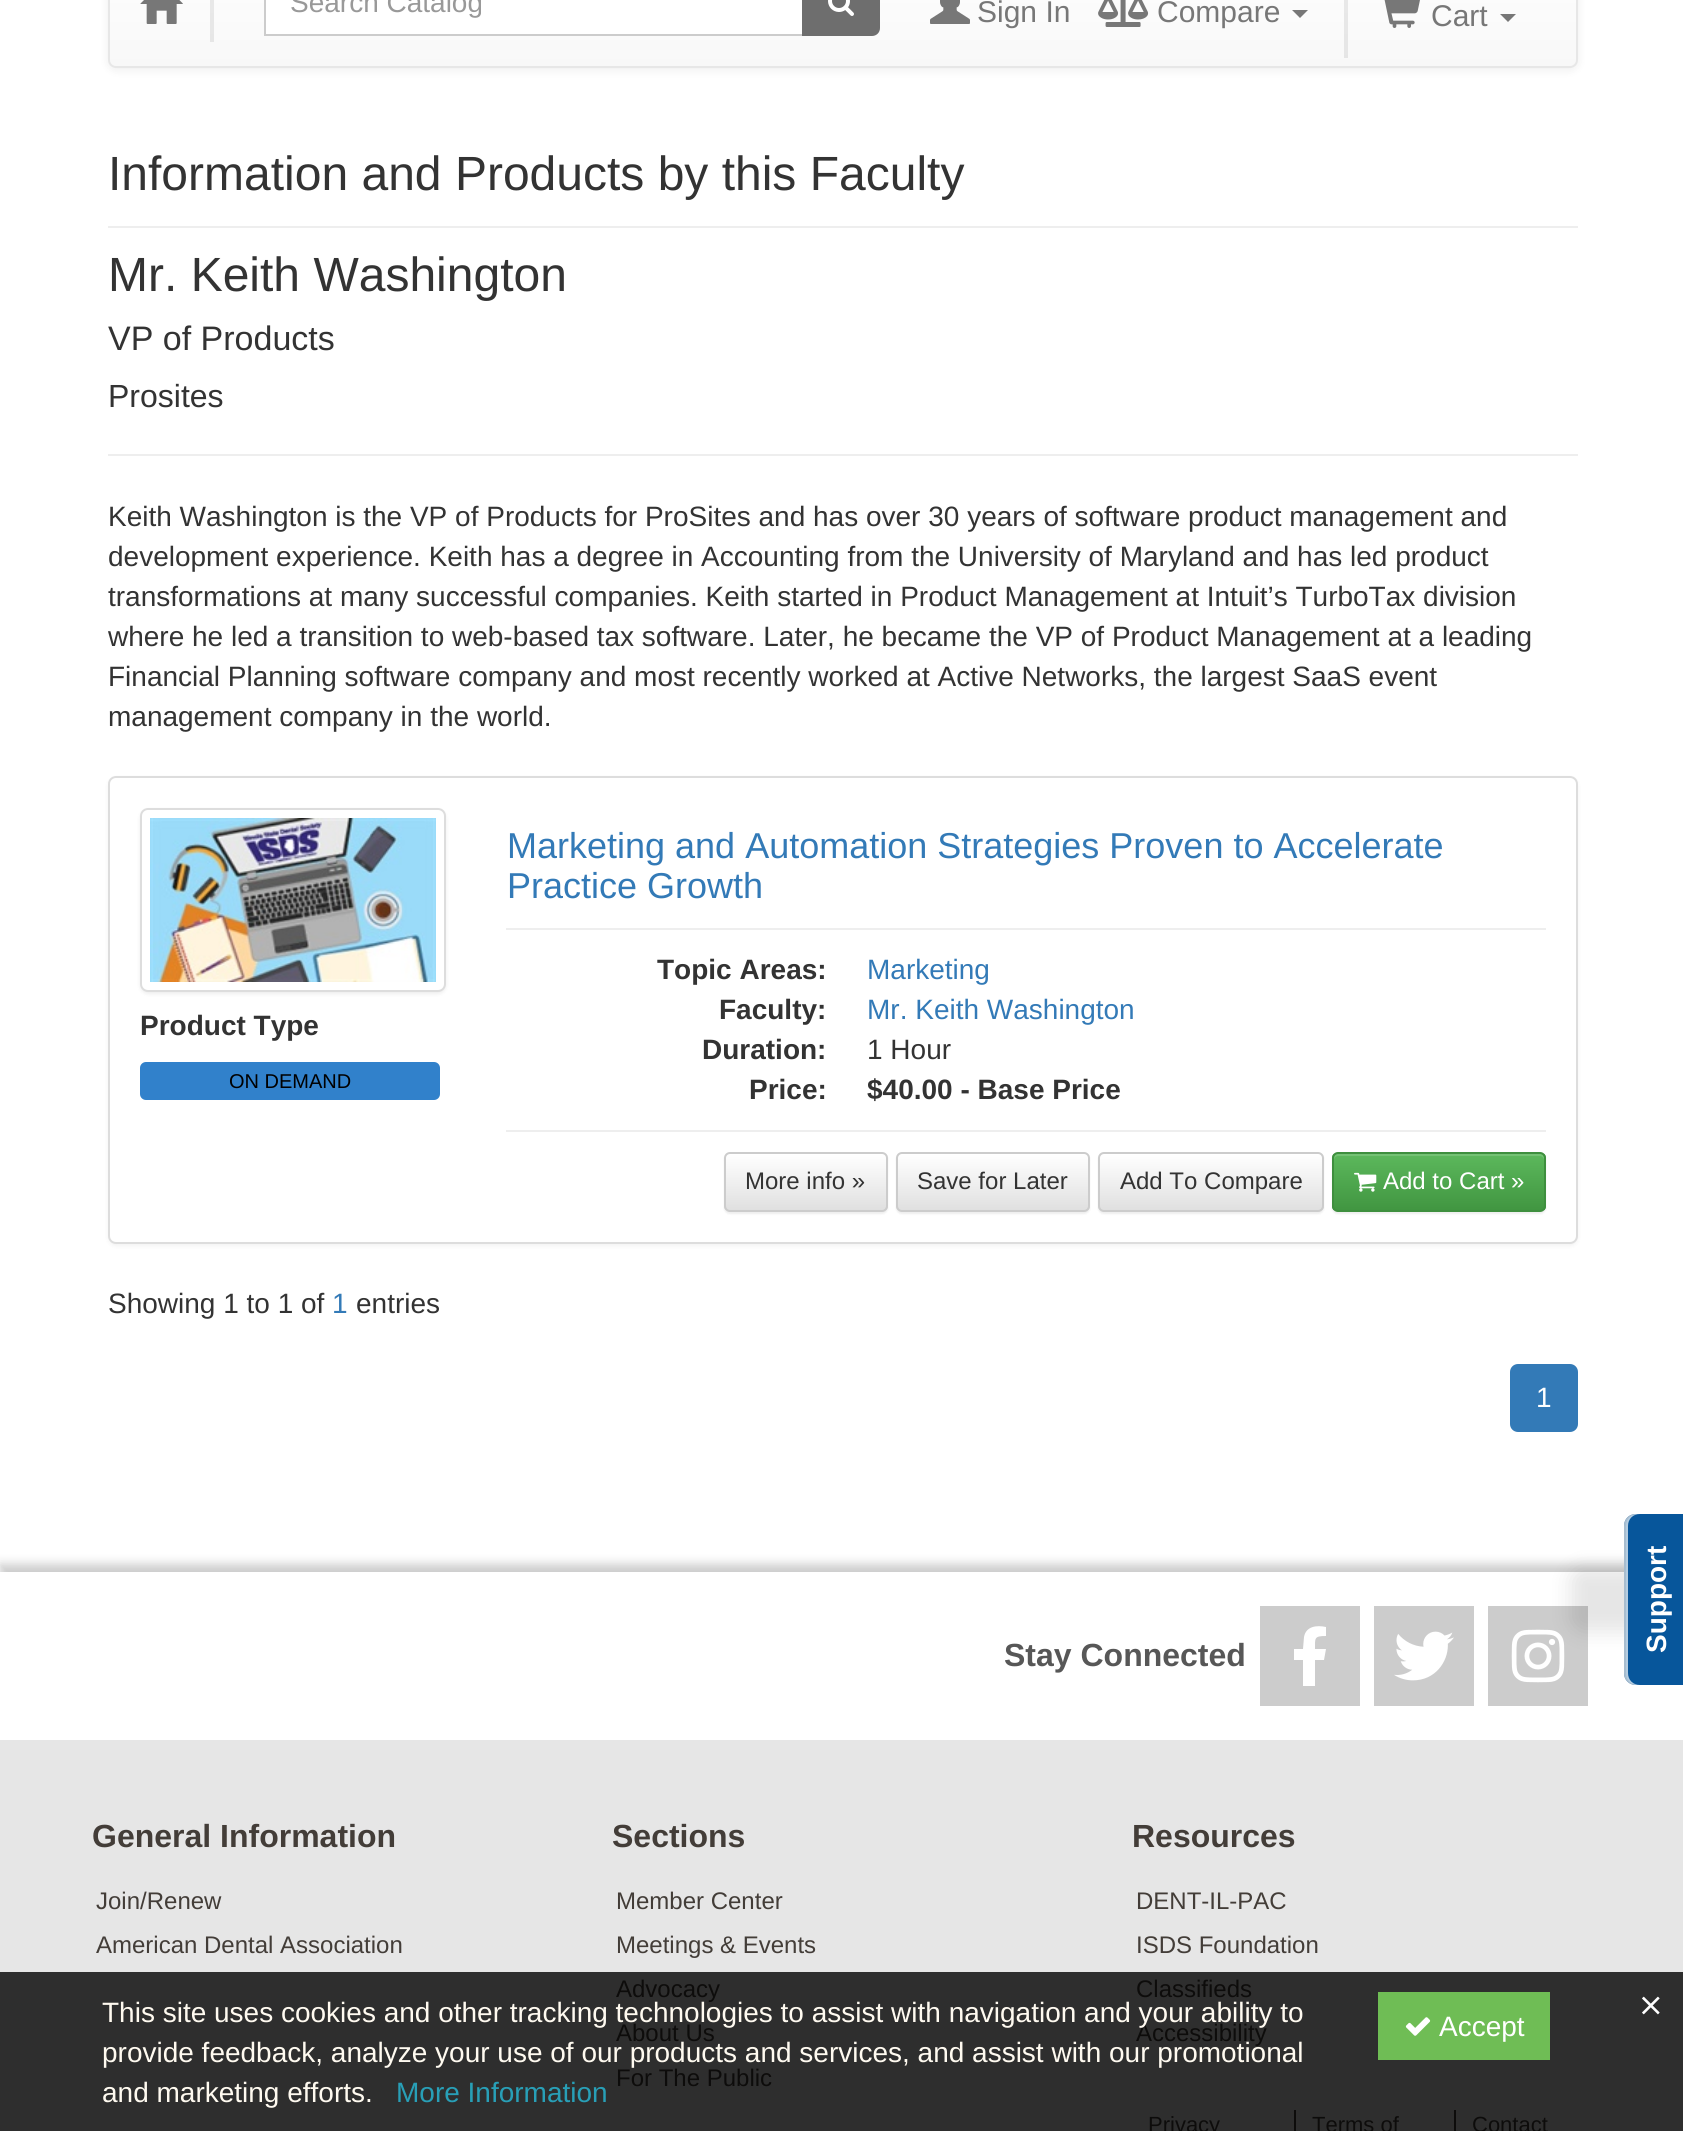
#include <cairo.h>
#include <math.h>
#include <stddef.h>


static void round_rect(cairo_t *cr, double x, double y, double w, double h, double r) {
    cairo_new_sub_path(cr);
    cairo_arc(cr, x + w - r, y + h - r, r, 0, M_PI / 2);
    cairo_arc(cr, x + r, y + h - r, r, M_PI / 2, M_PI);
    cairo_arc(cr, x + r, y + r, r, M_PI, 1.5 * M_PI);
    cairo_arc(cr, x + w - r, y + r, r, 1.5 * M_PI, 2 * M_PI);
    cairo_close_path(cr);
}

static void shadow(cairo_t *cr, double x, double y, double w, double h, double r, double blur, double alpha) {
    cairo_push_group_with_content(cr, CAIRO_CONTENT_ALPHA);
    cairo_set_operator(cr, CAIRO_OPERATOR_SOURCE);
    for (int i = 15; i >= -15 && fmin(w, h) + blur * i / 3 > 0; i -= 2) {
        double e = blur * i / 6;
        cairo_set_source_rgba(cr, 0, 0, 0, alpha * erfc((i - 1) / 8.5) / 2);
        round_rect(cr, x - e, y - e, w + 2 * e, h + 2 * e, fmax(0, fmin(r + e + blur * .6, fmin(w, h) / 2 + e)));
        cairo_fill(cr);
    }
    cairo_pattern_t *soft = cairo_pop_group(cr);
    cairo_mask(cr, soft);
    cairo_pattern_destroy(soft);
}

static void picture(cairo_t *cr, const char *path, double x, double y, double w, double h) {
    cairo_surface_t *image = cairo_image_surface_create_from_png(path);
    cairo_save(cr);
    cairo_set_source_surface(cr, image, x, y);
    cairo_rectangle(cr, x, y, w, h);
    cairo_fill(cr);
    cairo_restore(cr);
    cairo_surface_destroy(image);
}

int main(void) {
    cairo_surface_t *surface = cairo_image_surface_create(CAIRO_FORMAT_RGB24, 1683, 2131);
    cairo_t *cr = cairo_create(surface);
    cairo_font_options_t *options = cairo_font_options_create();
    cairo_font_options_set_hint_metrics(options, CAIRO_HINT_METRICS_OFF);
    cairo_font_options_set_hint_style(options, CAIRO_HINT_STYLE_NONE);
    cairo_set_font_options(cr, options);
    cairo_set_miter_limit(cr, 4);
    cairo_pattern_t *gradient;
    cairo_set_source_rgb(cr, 1, 1, 1);
    cairo_paint(cr);
    cairo_set_source_rgb(cr, 0, 0, 0);
    shadow(cr, 108, -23, 1470, 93, 8, 5, 0.07);
    cairo_save(cr);
    round_rect(cr, 108, -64, 1470, 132, 8);
    cairo_clip(cr);
    gradient = cairo_pattern_create_linear(843, -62, 843, 66);
    cairo_pattern_add_color_stop_rgba(gradient, 0, 1, 1, 1, 1);
    cairo_pattern_add_color_stop_rgba(gradient, 1, 0.973, 0.973, 0.973, 1);
    cairo_set_source(cr, gradient);
    cairo_pattern_destroy(gradient);
    cairo_rectangle(cr, 108, 0, 1470, 66);
    cairo_fill(cr);
    cairo_restore(cr);
    gradient = cairo_pattern_create_linear(843, -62, 843, 66);
    cairo_pattern_add_color_stop_rgba(gradient, 0, 0.922, 0.922, 0.922, 1);
    cairo_pattern_add_color_stop_rgba(gradient, 1, 0.898, 0.898, 0.898, 1);
    cairo_set_source(cr, gradient);
    cairo_pattern_destroy(gradient);
    cairo_rectangle(cr, 1344, 0, 4, 58);
    cairo_fill(cr);
    cairo_rectangle(cr, 210, 0, 4, 42);
    cairo_fill(cr);
    round_rect(cr, 109, -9, 1468, 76, 7);
    cairo_set_source_rgb(cr, 0.906, 0.906, 0.906);
    cairo_stroke(cr);
    picture(cr, "img1.png", 140, 0, 43, 24);
    cairo_set_source_rgb(cr, 1, 1, 1);
    cairo_rectangle(cr, 265, -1, 538, 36);
    cairo_fill_preserve(cr);
    cairo_set_source_rgb(cr, 0.8, 0.8, 0.8);
    cairo_stroke(cr);
    cairo_select_font_face(cr, "Liberation Sans", CAIRO_FONT_SLANT_NORMAL, CAIRO_FONT_WEIGHT_NORMAL);
    cairo_set_font_size(cr, 28);
    cairo_set_source_rgb(cr, 0.6, 0.6, 0.6);
    cairo_move_to(cr, 290, 12);
    cairo_show_text(cr, "Search Catalog");
    cairo_set_source_rgb(cr, 0.431, 0.431, 0.431);
    cairo_new_path(cr);
    cairo_move_to(cr, 802, -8);
    cairo_line_to(cr, 872, -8);
    cairo_curve_to(cr, 876.5, -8, 880, -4.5, 880, 0);
    cairo_line_to(cr, 880, 28);
    cairo_curve_to(cr, 880, 32.5, 876.5, 36, 872, 36);
    cairo_line_to(cr, 802, 36);
    cairo_close_path(cr);
    cairo_fill(cr);
    picture(cr, "img2.png", 828, 0, 26, 16);
    picture(cr, "img3.png", 930, 0, 40, 24);
    cairo_set_font_size(cr, 30);
    cairo_set_source_rgb(cr, 0.467, 0.467, 0.467);
    cairo_move_to(cr, 977, 22);
    cairo_show_text(cr, "Sign In");
    picture(cr, "img4.png", 1098, 0, 51, 27);
    cairo_move_to(cr, 1157, 22);
    cairo_show_text(cr, "Compare");
    cairo_new_path(cr);
    cairo_move_to(cr, 1292, 10);
    cairo_line_to(cr, 1308, 10);
    cairo_line_to(cr, 1300, 18);
    cairo_close_path(cr);
    cairo_fill(cr);
    picture(cr, "img5.png", 1384, 0, 36, 28);
    cairo_move_to(cr, 1431, 26);
    cairo_show_text(cr, "Cart");
    cairo_new_path(cr);
    cairo_move_to(cr, 1500, 14);
    cairo_line_to(cr, 1516, 14);
    cairo_line_to(cr, 1508, 22);
    cairo_close_path(cr);
    cairo_fill(cr);
    cairo_set_source_rgb(cr, 0.933, 0.933, 0.933);
    cairo_rectangle(cr, 108, 226, 1470, 2);
    cairo_fill(cr);
    cairo_set_font_size(cr, 48);
    cairo_set_source_rgb(cr, 0.2, 0.2, 0.2);
    cairo_move_to(cr, 108, 190);
    cairo_show_text(cr, "Information and Products by this Faculty");
    cairo_move_to(cr, 108, 291);
    cairo_show_text(cr, "Mr. Keith Washington");
    cairo_set_font_size(cr, 34);
    cairo_move_to(cr, 108, 350);
    cairo_show_text(cr, "VP of Products");
    cairo_set_font_size(cr, 32);
    cairo_move_to(cr, 108, 407);
    cairo_show_text(cr, "Prosites");
    cairo_set_source_rgb(cr, 0.933, 0.933, 0.933);
    cairo_rectangle(cr, 108, 454, 1470, 2);
    cairo_fill(cr);
    cairo_set_font_size(cr, 28);
    cairo_set_source_rgb(cr, 0.2, 0.2, 0.2);
    cairo_move_to(cr, 108, 526);
    cairo_show_text(cr, "Keith Washington is the VP of Products for ProSites and has over 30 years of software product management and");
    cairo_move_to(cr, 108, 566);
    cairo_show_text(cr, "development experience. Keith has a degree in Accounting from the University of Maryland and has led product");
    cairo_move_to(cr, 108, 606);
    cairo_show_text(cr, "transformations at many successful companies. Keith started in Product Management at Intuit’s TurboTax division");
    cairo_move_to(cr, 108, 646);
    cairo_show_text(cr, "where he led a transition to web-based tax software. Later, he became the VP of Product Management at a leading");
    cairo_move_to(cr, 108, 686);
    cairo_show_text(cr, "Financial Planning software company and most recently worked at Active Networks, the largest SaaS event");
    cairo_move_to(cr, 108, 726);
    cairo_show_text(cr, "management company in the world.");
    cairo_set_source_rgb(cr, 0, 0, 0);
    shadow(cr, 108, 778, 1470, 468, 8, 2, 0.05);
    cairo_set_source_rgb(cr, 1, 1, 1);
    round_rect(cr, 109, 777, 1468, 466, 7);
    cairo_fill_preserve(cr);
    cairo_set_source_rgb(cr, 0.867, 0.867, 0.867);
    cairo_stroke(cr);
    cairo_set_source_rgb(cr, 0, 0, 0);
    shadow(cr, 140, 810, 306, 184, 8, 2, 0.07);
    cairo_set_source_rgb(cr, 1, 1, 1);
    round_rect(cr, 141, 809, 304, 182, 7);
    cairo_fill_preserve(cr);
    cairo_set_source_rgb(cr, 0.867, 0.867, 0.867);
    cairo_stroke(cr);
    picture(cr, "img6.png", 150, 818, 286, 164);
    cairo_select_font_face(cr, "Liberation Sans", CAIRO_FONT_SLANT_NORMAL, CAIRO_FONT_WEIGHT_BOLD);
    cairo_set_source_rgb(cr, 0.2, 0.2, 0.2);
    cairo_move_to(cr, 140, 1035);
    cairo_show_text(cr, "Product Type");
    cairo_set_source_rgb(cr, 0.192, 0.506, 0.796);
    round_rect(cr, 140, 1062, 300, 38, 6);
    cairo_fill(cr);
    cairo_select_font_face(cr, "Liberation Sans", CAIRO_FONT_SLANT_NORMAL, CAIRO_FONT_WEIGHT_NORMAL);
    cairo_set_font_size(cr, 20);
    cairo_set_source_rgb(cr, 0, 0, 0);
    cairo_move_to(cr, 229, 1088);
    cairo_show_text(cr, "ON DEMAND");
    cairo_set_font_size(cr, 36);
    cairo_set_source_rgb(cr, 0.2, 0.478, 0.718);
    cairo_move_to(cr, 507, 858);
    cairo_show_text(cr, "Marketing and Automation Strategies Proven to Accelerate");
    cairo_move_to(cr, 507, 898);
    cairo_show_text(cr, "Practice Growth");
    cairo_set_source_rgb(cr, 0.933, 0.933, 0.933);
    cairo_rectangle(cr, 506, 928, 1040, 2);
    cairo_fill(cr);
    cairo_select_font_face(cr, "Liberation Sans", CAIRO_FONT_SLANT_NORMAL, CAIRO_FONT_WEIGHT_BOLD);
    cairo_set_font_size(cr, 28);
    cairo_set_source_rgb(cr, 0.2, 0.2, 0.2);
    cairo_move_to(cr, 657, 979);
    cairo_show_text(cr, "Topic Areas:");
    cairo_select_font_face(cr, "Liberation Sans", CAIRO_FONT_SLANT_NORMAL, CAIRO_FONT_WEIGHT_NORMAL);
    cairo_set_source_rgb(cr, 0.2, 0.478, 0.718);
    cairo_move_to(cr, 867, 979);
    cairo_show_text(cr, "Marketing");
    cairo_select_font_face(cr, "Liberation Sans", CAIRO_FONT_SLANT_NORMAL, CAIRO_FONT_WEIGHT_BOLD);
    cairo_set_source_rgb(cr, 0.2, 0.2, 0.2);
    cairo_move_to(cr, 719, 1019);
    cairo_show_text(cr, "Faculty:");
    cairo_select_font_face(cr, "Liberation Sans", CAIRO_FONT_SLANT_NORMAL, CAIRO_FONT_WEIGHT_NORMAL);
    cairo_set_source_rgb(cr, 0.2, 0.478, 0.718);
    cairo_move_to(cr, 867, 1019);
    cairo_show_text(cr, "Mr. Keith Washington");
    cairo_select_font_face(cr, "Liberation Sans", CAIRO_FONT_SLANT_NORMAL, CAIRO_FONT_WEIGHT_BOLD);
    cairo_set_source_rgb(cr, 0.2, 0.2, 0.2);
    cairo_move_to(cr, 702, 1059);
    cairo_show_text(cr, "Duration:");
    cairo_select_font_face(cr, "Liberation Sans", CAIRO_FONT_SLANT_NORMAL, CAIRO_FONT_WEIGHT_NORMAL);
    cairo_move_to(cr, 867, 1059);
    cairo_show_text(cr, "1 Hour");
    cairo_select_font_face(cr, "Liberation Sans", CAIRO_FONT_SLANT_NORMAL, CAIRO_FONT_WEIGHT_BOLD);
    cairo_move_to(cr, 749, 1099);
    cairo_show_text(cr, "Price:");
    cairo_move_to(cr, 867, 1099);
    cairo_show_text(cr, "$40.00 - Base Price");
    cairo_set_source_rgb(cr, 0.933, 0.933, 0.933);
    cairo_rectangle(cr, 506, 1130, 1040, 2);
    cairo_fill(cr);
    cairo_set_source_rgb(cr, 0, 0, 0);
    shadow(cr, 724, 1154, 164, 60, 6, 1, 0.07);
    cairo_save(cr);
    round_rect(cr, 724, 1152, 164, 60, 6);
    cairo_clip(cr);
    gradient = cairo_pattern_create_linear(806, 1154, 806, 1210);
    cairo_pattern_add_color_stop_rgba(gradient, 0, 1, 1, 1, 1);
    cairo_pattern_add_color_stop_rgba(gradient, 1, 0.878, 0.878, 0.878, 1);
    cairo_set_source(cr, gradient);
    cairo_pattern_destroy(gradient);
    cairo_rectangle(cr, 724, 1154, 164, 56);
    cairo_fill(cr);
    cairo_restore(cr);
    round_rect(cr, 725, 1153, 162, 58, 5);
    cairo_set_source_rgb(cr, 0.8, 0.8, 0.8);
    cairo_stroke(cr);
    cairo_select_font_face(cr, "Liberation Sans", CAIRO_FONT_SLANT_NORMAL, CAIRO_FONT_WEIGHT_NORMAL);
    cairo_set_font_size(cr, 24);
    cairo_set_source_rgb(cr, 0.2, 0.2, 0.2);
    cairo_move_to(cr, 745, 1189);
    cairo_show_text(cr, "More info »");
    cairo_set_source_rgb(cr, 0, 0, 0);
    shadow(cr, 896, 1154, 194, 60, 6, 1, 0.07);
    cairo_save(cr);
    round_rect(cr, 896, 1152, 194, 60, 6);
    cairo_clip(cr);
    gradient = cairo_pattern_create_linear(993, 1154, 993, 1210);
    cairo_pattern_add_color_stop_rgba(gradient, 0, 1, 1, 1, 1);
    cairo_pattern_add_color_stop_rgba(gradient, 1, 0.878, 0.878, 0.878, 1);
    cairo_set_source(cr, gradient);
    cairo_pattern_destroy(gradient);
    cairo_rectangle(cr, 896, 1154, 194, 56);
    cairo_fill(cr);
    cairo_restore(cr);
    round_rect(cr, 897, 1153, 192, 58, 5);
    cairo_set_source_rgb(cr, 0.8, 0.8, 0.8);
    cairo_stroke(cr);
    cairo_set_source_rgb(cr, 0.2, 0.2, 0.2);
    cairo_move_to(cr, 917, 1189);
    cairo_show_text(cr, "Save for Later");
    cairo_set_source_rgb(cr, 0, 0, 0);
    shadow(cr, 1098, 1154, 226, 60, 6, 1, 0.07);
    cairo_save(cr);
    round_rect(cr, 1098, 1152, 226, 60, 6);
    cairo_clip(cr);
    gradient = cairo_pattern_create_linear(1211, 1154, 1211, 1210);
    cairo_pattern_add_color_stop_rgba(gradient, 0, 1, 1, 1, 1);
    cairo_pattern_add_color_stop_rgba(gradient, 1, 0.878, 0.878, 0.878, 1);
    cairo_set_source(cr, gradient);
    cairo_pattern_destroy(gradient);
    cairo_rectangle(cr, 1098, 1154, 226, 56);
    cairo_fill(cr);
    cairo_restore(cr);
    round_rect(cr, 1099, 1153, 224, 58, 5);
    cairo_set_source_rgb(cr, 0.8, 0.8, 0.8);
    cairo_stroke(cr);
    cairo_set_source_rgb(cr, 0.2, 0.2, 0.2);
    cairo_move_to(cr, 1120, 1189);
    cairo_show_text(cr, "Add To Compare");
    cairo_set_source_rgb(cr, 0, 0, 0);
    shadow(cr, 1332, 1154, 214, 60, 6, 1, 0.07);
    cairo_save(cr);
    round_rect(cr, 1332, 1152, 214, 60, 6);
    cairo_clip(cr);
    gradient = cairo_pattern_create_linear(1439, 1154, 1439, 1210);
    cairo_pattern_add_color_stop_rgba(gradient, 0, 0.361, 0.722, 0.361, 1);
    cairo_pattern_add_color_stop_rgba(gradient, 1, 0.255, 0.588, 0.255, 1);
    cairo_set_source(cr, gradient);
    cairo_pattern_destroy(gradient);
    cairo_rectangle(cr, 1332, 1154, 214, 56);
    cairo_fill(cr);
    cairo_restore(cr);
    cairo_set_source_rgb(cr, 0.455, 0.761, 0.455);
    cairo_new_path(cr);
    cairo_move_to(cr, 1338, 1156);
    cairo_line_to(cr, 1540, 1156);
    cairo_curve_to(cr, 1542, 1156, 1544, 1158, 1544, 1160);
    cairo_curve_to(cr, 1544, 1157, 1544, 1155, 1541, 1154);
    cairo_line_to(cr, 1337, 1154);
    cairo_curve_to(cr, 1334, 1155, 1334, 1157, 1334, 1160);
    cairo_curve_to(cr, 1334, 1158, 1336, 1156, 1338, 1156);
    cairo_close_path(cr);
    cairo_fill(cr);
    round_rect(cr, 1333, 1153, 212, 58, 5);
    cairo_set_source_rgb(cr, 0.243, 0.561, 0.243);
    cairo_stroke(cr);
    picture(cr, "img7.png", 1354, 1172, 23, 20);
    cairo_set_source_rgb(cr, 1, 1, 1);
    cairo_move_to(cr, 1383, 1189);
    cairo_show_text(cr, "Add to Cart »");
    cairo_set_font_size(cr, 28);
    cairo_set_source_rgb(cr, 0.2, 0.2, 0.2);
    cairo_move_to(cr, 108, 1313);
    cairo_show_text(cr, "Showing 1 to 1 of");
    cairo_set_source_rgb(cr, 0.2, 0.478, 0.718);
    cairo_move_to(cr, 332, 1313);
    cairo_show_text(cr, "1");
    cairo_set_source_rgb(cr, 0.2, 0.2, 0.2);
    cairo_move_to(cr, 356, 1313);
    cairo_show_text(cr, "entries");
    cairo_set_source_rgb(cr, 0.2, 0.478, 0.718);
    round_rect(cr, 1511, 1365, 66, 66, 7);
    cairo_fill_preserve(cr);
    cairo_stroke(cr);
    cairo_set_source_rgb(cr, 1, 1, 1);
    cairo_move_to(cr, 1536, 1407);
    cairo_show_text(cr, "1");
    cairo_save(cr);
    cairo_rectangle(cr, 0, 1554, 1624, 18);
    cairo_clip(cr);
    cairo_set_source_rgb(cr, 0.8, 0.8, 0.8);
    shadow(cr, 0, 1564, 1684, 168, 0, 5, 1);
    cairo_restore(cr);
    cairo_set_source_rgb(cr, 0.8, 0.8, 0.8);
    cairo_rectangle(cr, 1488, 1606, 100, 100);
    cairo_fill(cr);
    picture(cr, "img9.png", 1511, 1629, 54, 54);
    cairo_set_source_rgb(cr, 0, 0, 0);
    shadow(cr, 1570, 1568, 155, 64, 12, 10, 0.1);
    cairo_set_source_rgb(cr, 0.031, 0.337, 0.608);
    cairo_new_path(cr);
    cairo_move_to(cr, 1624, 1673);
    cairo_line_to(cr, 1624, 1526);
    cairo_curve_to(cr, 1624, 1519, 1629, 1514, 1636, 1514);
    cairo_line_to(cr, 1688, 1514);
    cairo_line_to(cr, 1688, 1685);
    cairo_line_to(cr, 1636, 1685);
    cairo_curve_to(cr, 1629, 1685, 1624, 1680, 1624, 1673);
    cairo_close_path(cr);
    cairo_fill(cr);
    cairo_set_source_rgba(cr, 1, 1, 1, 0.7);
    cairo_new_path(cr);
    cairo_move_to(cr, 1628, 1673);
    cairo_line_to(cr, 1628, 1526);
    cairo_curve_to(cr, 1628, 1519, 1633, 1514, 1640, 1514);
    cairo_line_to(cr, 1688, 1514);
    cairo_line_to(cr, 1636, 1514);
    cairo_curve_to(cr, 1629, 1514, 1624, 1519, 1624, 1526);
    cairo_line_to(cr, 1624, 1673);
    cairo_curve_to(cr, 1624, 1680, 1629, 1685, 1636, 1685);
    cairo_line_to(cr, 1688, 1685);
    cairo_line_to(cr, 1640, 1685);
    cairo_curve_to(cr, 1633, 1685, 1628, 1680, 1628, 1673);
    cairo_close_path(cr);
    cairo_fill(cr);
    cairo_set_source_rgba(cr, 0, 0, 0, 0.08);
    cairo_new_path(cr);
    cairo_move_to(cr, 1626, 1673);
    cairo_line_to(cr, 1626, 1526);
    cairo_curve_to(cr, 1626, 1519, 1631, 1514, 1638, 1514);
    cairo_line_to(cr, 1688, 1514);
    cairo_line_to(cr, 1636, 1514);
    cairo_curve_to(cr, 1629, 1514, 1624, 1519, 1624, 1526);
    cairo_line_to(cr, 1624, 1673);
    cairo_curve_to(cr, 1624, 1680, 1629, 1685, 1636, 1685);
    cairo_line_to(cr, 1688, 1685);
    cairo_line_to(cr, 1638, 1685);
    cairo_curve_to(cr, 1631, 1685, 1626, 1680, 1626, 1673);
    cairo_close_path(cr);
    cairo_fill(cr);
    cairo_select_font_face(cr, "Liberation Sans", CAIRO_FONT_SLANT_NORMAL, CAIRO_FONT_WEIGHT_BOLD);
    cairo_set_source_rgb(cr, 1, 1, 1);
    cairo_save(cr);
    cairo_translate(cr, 1666, 1653);
    cairo_rotate(cr, -90 * M_PI / 180);
    cairo_move_to(cr, 0, 0);
    cairo_show_text(cr, "Support");
    cairo_restore(cr);
    cairo_set_font_size(cr, 32);
    cairo_set_source_rgb(cr, 0.341, 0.341, 0.341);
    cairo_move_to(cr, 1004, 1666);
    cairo_show_text(cr, "Stay Connected");
    cairo_set_source_rgb(cr, 0.8, 0.8, 0.8);
    cairo_rectangle(cr, 1260, 1606, 100, 100);
    cairo_fill(cr);
    cairo_set_source_rgb(cr, 1, 1, 1);
    cairo_new_path(cr);
    cairo_move_to(cr, 1324, 1660);
    cairo_line_to(cr, 1326, 1649);
    cairo_line_to(cr, 1315, 1649);
    cairo_curve_to(cr, 1315, 1638, 1314, 1636, 1326, 1636);
    cairo_line_to(cr, 1326, 1627);
    cairo_curve_to(cr, 1317, 1625, 1306, 1626, 1304, 1637);
    cairo_line_to(cr, 1303, 1649);
    cairo_line_to(cr, 1294, 1649);
    cairo_line_to(cr, 1294, 1660);
    cairo_line_to(cr, 1303, 1660);
    cairo_line_to(cr, 1303, 1686);
    cairo_line_to(cr, 1315, 1686);
    cairo_line_to(cr, 1315, 1660);
    cairo_close_path(cr);
    cairo_fill(cr);
    cairo_set_source_rgb(cr, 0.8, 0.8, 0.8);
    cairo_rectangle(cr, 1374, 1606, 100, 100);
    cairo_fill(cr);
    picture(cr, "img8.png", 1394, 1631, 60, 50);
    cairo_set_source_rgb(cr, 0.902, 0.902, 0.902);
    cairo_rectangle(cr, 0, 1740, 1683, 232);
    cairo_fill(cr);
    cairo_set_source_rgb(cr, 0.18, 0.18, 0.18);
    cairo_rectangle(cr, 0, 1972, 1683, 159);
    cairo_fill(cr);
    cairo_set_source_rgb(cr, 0.263, 0.239, 0.22);
    cairo_move_to(cr, 92, 1847);
    cairo_show_text(cr, "General Information");
    cairo_select_font_face(cr, "Liberation Sans", CAIRO_FONT_SLANT_NORMAL, CAIRO_FONT_WEIGHT_NORMAL);
    cairo_set_font_size(cr, 24);
    cairo_move_to(cr, 96, 1909);
    cairo_show_text(cr, "Join/Renew");
    cairo_move_to(cr, 96, 1953);
    cairo_show_text(cr, "American Dental Association");
    cairo_select_font_face(cr, "Liberation Sans", CAIRO_FONT_SLANT_NORMAL, CAIRO_FONT_WEIGHT_BOLD);
    cairo_set_font_size(cr, 32);
    cairo_move_to(cr, 612, 1847);
    cairo_show_text(cr, "Sections");
    cairo_select_font_face(cr, "Liberation Sans", CAIRO_FONT_SLANT_NORMAL, CAIRO_FONT_WEIGHT_NORMAL);
    cairo_set_font_size(cr, 24);
    cairo_move_to(cr, 616, 1909);
    cairo_show_text(cr, "Member Center");
    cairo_move_to(cr, 616, 1953);
    cairo_show_text(cr, "Meetings & Events");
    cairo_set_source_rgb(cr, 0.051, 0.047, 0.043);
    cairo_move_to(cr, 616, 1997);
    cairo_show_text(cr, "Advocacy");
    cairo_move_to(cr, 616, 2041);
    cairo_show_text(cr, "About Us");
    cairo_move_to(cr, 616, 2086);
    cairo_show_text(cr, "For The Public");
    cairo_select_font_face(cr, "Liberation Sans", CAIRO_FONT_SLANT_NORMAL, CAIRO_FONT_WEIGHT_BOLD);
    cairo_set_font_size(cr, 32);
    cairo_set_source_rgb(cr, 0.263, 0.239, 0.22);
    cairo_move_to(cr, 1132, 1847);
    cairo_show_text(cr, "Resources");
    cairo_select_font_face(cr, "Liberation Sans", CAIRO_FONT_SLANT_NORMAL, CAIRO_FONT_WEIGHT_NORMAL);
    cairo_set_font_size(cr, 24);
    cairo_move_to(cr, 1136, 1909);
    cairo_show_text(cr, "DENT-IL-PAC");
    cairo_move_to(cr, 1136, 1953);
    cairo_show_text(cr, "ISDS Foundation");
    cairo_set_source_rgb(cr, 0.051, 0.047, 0.043);
    cairo_move_to(cr, 1136, 1997);
    cairo_show_text(cr, "Classifieds");
    cairo_move_to(cr, 1136, 2041);
    cairo_show_text(cr, "Accessibility");
    cairo_set_font_size(cr, 22);
    cairo_move_to(cr, 1148, 2132);
    cairo_show_text(cr, "Privacy");
    cairo_rectangle(cr, 1294, 2110, 2, 21);
    cairo_fill(cr);
    cairo_move_to(cr, 1312, 2132);
    cairo_show_text(cr, "Terms of");
    cairo_rectangle(cr, 1454, 2110, 2, 21);
    cairo_fill(cr);
    cairo_move_to(cr, 1472, 2132);
    cairo_show_text(cr, "Contact");
    cairo_set_font_size(cr, 28);
    cairo_set_source_rgb(cr, 1, 0.98, 0.941);
    cairo_move_to(cr, 102, 2022);
    cairo_show_text(cr, "This site uses cookies and other tracking technologies to assist with navigation and your ability to");
    cairo_move_to(cr, 102, 2062);
    cairo_show_text(cr, "provide feedback, analyze your use of our products and services, and assist with our promotional");
    cairo_move_to(cr, 102, 2102);
    cairo_show_text(cr, "and marketing efforts.");
    cairo_set_source_rgb(cr, 0.157, 0.624, 0.718);
    cairo_move_to(cr, 396, 2102);
    cairo_show_text(cr, "More Information");
    cairo_set_source_rgb(cr, 0.435, 0.741, 0.333);
    cairo_rectangle(cr, 1378, 1992, 172, 68);
    cairo_fill(cr);
    picture(cr, "img10.png", 1405, 2017, 26, 19);
    cairo_set_source_rgb(cr, 1, 1, 1);
    cairo_move_to(cr, 1439, 2036);
    cairo_show_text(cr, "Accept");
    picture(cr, "img11.png", 1642, 1996, 18, 19);
    cairo_surface_write_to_png(surface, "page.png");
    cairo_font_options_destroy(options);
    cairo_destroy(cr);
    cairo_surface_destroy(surface);
    return 0;
}
